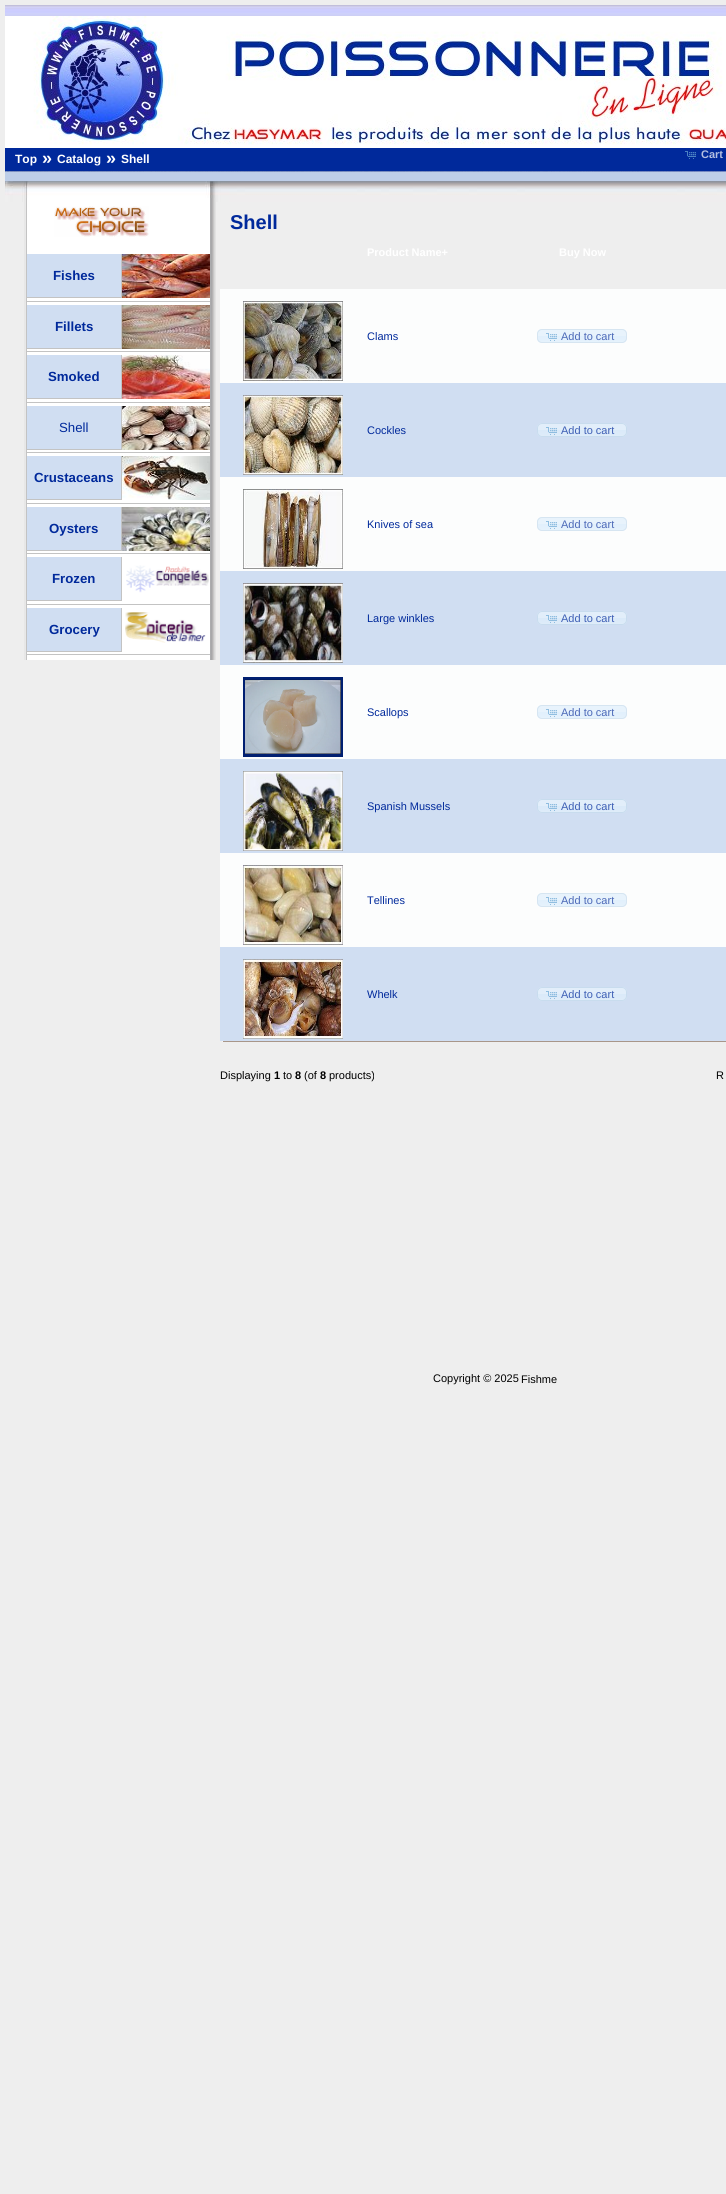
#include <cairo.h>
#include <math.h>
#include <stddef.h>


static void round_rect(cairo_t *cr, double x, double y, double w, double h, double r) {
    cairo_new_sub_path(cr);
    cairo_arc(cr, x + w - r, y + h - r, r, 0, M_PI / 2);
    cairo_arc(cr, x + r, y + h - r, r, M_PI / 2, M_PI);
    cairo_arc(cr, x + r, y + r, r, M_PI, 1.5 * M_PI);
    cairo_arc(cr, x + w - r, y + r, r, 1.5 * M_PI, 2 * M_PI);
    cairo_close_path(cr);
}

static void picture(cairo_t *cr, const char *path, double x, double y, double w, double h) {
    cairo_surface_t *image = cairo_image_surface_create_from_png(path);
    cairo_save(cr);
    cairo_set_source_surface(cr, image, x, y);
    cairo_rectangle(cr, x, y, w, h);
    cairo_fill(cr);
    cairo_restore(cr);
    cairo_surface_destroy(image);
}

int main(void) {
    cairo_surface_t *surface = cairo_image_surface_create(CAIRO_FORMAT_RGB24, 726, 2194);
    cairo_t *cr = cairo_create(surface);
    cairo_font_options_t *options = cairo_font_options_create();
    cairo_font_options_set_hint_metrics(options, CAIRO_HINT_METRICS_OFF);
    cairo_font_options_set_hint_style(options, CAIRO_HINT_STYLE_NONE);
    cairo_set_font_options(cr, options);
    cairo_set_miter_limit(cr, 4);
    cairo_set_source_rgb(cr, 0.933, 0.933, 0.933);
    cairo_paint(cr);
    picture(cr, "img1.png", 5, 5, 721, 197);
    cairo_select_font_face(cr, "Liberation Sans", CAIRO_FONT_SLANT_NORMAL, CAIRO_FONT_WEIGHT_BOLD);
    cairo_set_font_size(cr, 12);
    cairo_set_source_rgb(cr, 1, 1, 1);
    cairo_move_to(cr, 15, 163);
    cairo_show_text(cr, "Top");
    cairo_set_font_size(cr, 18);
    cairo_move_to(cr, 42, 164);
    cairo_show_text(cr, "»");
    cairo_set_font_size(cr, 12);
    cairo_move_to(cr, 57, 163);
    cairo_show_text(cr, "Catalog");
    cairo_set_font_size(cr, 18);
    cairo_move_to(cr, 106, 164);
    cairo_show_text(cr, "»");
    cairo_set_font_size(cr, 12);
    cairo_move_to(cr, 121, 163);
    cairo_show_text(cr, "Shell");
    picture(cr, "img2.png", 685, 151, 11, 8);
    cairo_set_font_size(cr, 11);
    cairo_set_source_rgb(cr, 0.702, 0.749, 0.882);
    cairo_move_to(cr, 701, 158);
    cairo_show_text(cr, "Cart");
    picture(cr, "img3.png", 24, 198, 192, 462);
    picture(cr, "img4.png", 54, 206, 95, 31);
    cairo_set_source_rgb(cr, 0.765, 0.765, 0.765);
    cairo_rectangle(cr, 26, 301, 184, 1);
    cairo_fill(cr);
    cairo_set_source_rgb(cr, 0.816, 0.871, 0.949);
    cairo_rectangle(cr, 27, 254, 94, 43);
    cairo_fill(cr);
    cairo_set_source_rgb(cr, 0.765, 0.765, 0.765);
    cairo_rectangle(cr, 121, 254, 1, 44);
    cairo_fill(cr);
    cairo_rectangle(cr, 26, 297, 96, 1);
    cairo_fill(cr);
    cairo_set_font_size(cr, 13.25);
    cairo_set_source_rgb(cr, 0, 0.161, 0.608);
    cairo_move_to(cr, 53, 280);
    cairo_show_text(cr, "Fishes");
    picture(cr, "img5.png", 122, 254, 88, 44);
    cairo_set_source_rgb(cr, 0.765, 0.765, 0.765);
    cairo_rectangle(cr, 26, 351, 184, 1);
    cairo_fill(cr);
    cairo_set_source_rgb(cr, 0.816, 0.871, 0.949);
    cairo_rectangle(cr, 27, 305, 94, 43);
    cairo_fill(cr);
    cairo_set_source_rgb(cr, 0.765, 0.765, 0.765);
    cairo_rectangle(cr, 121, 305, 1, 44);
    cairo_fill(cr);
    cairo_rectangle(cr, 26, 348, 96, 1);
    cairo_fill(cr);
    cairo_set_source_rgb(cr, 0, 0.161, 0.608);
    cairo_move_to(cr, 55, 331);
    cairo_show_text(cr, "Fillets");
    picture(cr, "img6.png", 122, 305, 88, 44);
    cairo_set_source_rgb(cr, 0.765, 0.765, 0.765);
    cairo_rectangle(cr, 26, 402, 184, 1);
    cairo_fill(cr);
    cairo_set_source_rgb(cr, 0.816, 0.871, 0.949);
    cairo_rectangle(cr, 27, 355, 94, 43);
    cairo_fill(cr);
    cairo_set_source_rgb(cr, 0.765, 0.765, 0.765);
    cairo_rectangle(cr, 121, 355, 1, 44);
    cairo_fill(cr);
    cairo_rectangle(cr, 26, 398, 96, 1);
    cairo_fill(cr);
    cairo_set_source_rgb(cr, 0, 0.161, 0.608);
    cairo_move_to(cr, 48, 381);
    cairo_show_text(cr, "Smoked");
    picture(cr, "img7.png", 122, 355, 88, 44);
    cairo_set_source_rgb(cr, 0.765, 0.765, 0.765);
    cairo_rectangle(cr, 26, 452, 184, 1);
    cairo_fill(cr);
    cairo_set_source_rgb(cr, 0.816, 0.871, 0.949);
    cairo_rectangle(cr, 27, 406, 94, 43);
    cairo_fill(cr);
    cairo_set_source_rgb(cr, 0.765, 0.765, 0.765);
    cairo_rectangle(cr, 121, 406, 1, 44);
    cairo_fill(cr);
    cairo_rectangle(cr, 26, 449, 96, 1);
    cairo_fill(cr);
    cairo_select_font_face(cr, "Liberation Sans", CAIRO_FONT_SLANT_NORMAL, CAIRO_FONT_WEIGHT_NORMAL);
    cairo_set_source_rgb(cr, 0, 0.161, 0.608);
    cairo_move_to(cr, 59, 432);
    cairo_show_text(cr, "Shell");
    picture(cr, "img8.png", 122, 406, 88, 44);
    cairo_set_source_rgb(cr, 0.765, 0.765, 0.765);
    cairo_rectangle(cr, 26, 503, 184, 1);
    cairo_fill(cr);
    cairo_set_source_rgb(cr, 0.816, 0.871, 0.949);
    cairo_rectangle(cr, 27, 456, 94, 43);
    cairo_fill(cr);
    cairo_set_source_rgb(cr, 0.765, 0.765, 0.765);
    cairo_rectangle(cr, 121, 456, 1, 44);
    cairo_fill(cr);
    cairo_rectangle(cr, 26, 499, 96, 1);
    cairo_fill(cr);
    cairo_select_font_face(cr, "Liberation Sans", CAIRO_FONT_SLANT_NORMAL, CAIRO_FONT_WEIGHT_BOLD);
    cairo_set_source_rgb(cr, 0, 0.161, 0.608);
    cairo_move_to(cr, 34, 482);
    cairo_show_text(cr, "Crustaceans");
    picture(cr, "img9.png", 122, 456, 88, 44);
    cairo_set_source_rgb(cr, 0.765, 0.765, 0.765);
    cairo_rectangle(cr, 26, 553, 184, 1);
    cairo_fill(cr);
    cairo_set_source_rgb(cr, 0.816, 0.871, 0.949);
    cairo_rectangle(cr, 27, 507, 94, 43);
    cairo_fill(cr);
    cairo_set_source_rgb(cr, 0.765, 0.765, 0.765);
    cairo_rectangle(cr, 121, 507, 1, 44);
    cairo_fill(cr);
    cairo_rectangle(cr, 26, 550, 96, 1);
    cairo_fill(cr);
    cairo_set_source_rgb(cr, 0, 0.161, 0.608);
    cairo_move_to(cr, 49, 533);
    cairo_show_text(cr, "Oysters");
    picture(cr, "img10.png", 122, 507, 88, 44);
    cairo_set_source_rgb(cr, 0.765, 0.765, 0.765);
    cairo_rectangle(cr, 26, 604, 184, 1);
    cairo_fill(cr);
    cairo_set_source_rgb(cr, 0.816, 0.871, 0.949);
    cairo_rectangle(cr, 27, 557, 94, 43);
    cairo_fill(cr);
    cairo_set_source_rgb(cr, 0.765, 0.765, 0.765);
    cairo_rectangle(cr, 121, 557, 1, 44);
    cairo_fill(cr);
    cairo_rectangle(cr, 26, 600, 96, 1);
    cairo_fill(cr);
    cairo_set_source_rgb(cr, 0, 0.161, 0.608);
    cairo_move_to(cr, 52, 583);
    cairo_show_text(cr, "Frozen");
    picture(cr, "img11.png", 126, 565, 83, 28);
    cairo_set_source_rgb(cr, 0.765, 0.765, 0.765);
    cairo_rectangle(cr, 26, 654, 184, 1);
    cairo_fill(cr);
    cairo_set_source_rgb(cr, 0.816, 0.871, 0.949);
    cairo_rectangle(cr, 27, 608, 94, 43);
    cairo_fill(cr);
    cairo_set_source_rgb(cr, 0.765, 0.765, 0.765);
    cairo_rectangle(cr, 121, 608, 1, 44);
    cairo_fill(cr);
    cairo_rectangle(cr, 26, 651, 96, 1);
    cairo_fill(cr);
    cairo_set_source_rgb(cr, 0, 0.161, 0.608);
    cairo_move_to(cr, 49, 634);
    cairo_show_text(cr, "Grocery");
    picture(cr, "img12.png", 125, 612, 81, 31);
    cairo_set_font_size(cr, 20);
    cairo_move_to(cr, 230, 229);
    cairo_show_text(cr, "Shell");
    cairo_set_font_size(cr, 11);
    cairo_set_source_rgb(cr, 1, 1, 1);
    cairo_move_to(cr, 367, 256);
    cairo_show_text(cr, "Product Name+");
    cairo_move_to(cr, 559, 256);
    cairo_show_text(cr, "Buy Now");
    cairo_set_source_rgb(cr, 0.988, 0.992, 0.992);
    cairo_new_path(cr);
    cairo_move_to(cr, 220, 289);
    cairo_line_to(cr, 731, 289);
    cairo_line_to(cr, 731, 1037);
    cairo_curve_to(cr, 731, 1040, 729, 1042, 726, 1042);
    cairo_line_to(cr, 225, 1042);
    cairo_curve_to(cr, 222, 1042, 220, 1040, 220, 1037);
    cairo_close_path(cr);
    cairo_fill(cr);
    cairo_set_source_rgb(cr, 0.659, 0.588, 0.541);
    cairo_rectangle(cr, 223, 1041, 503, 1);
    cairo_fill(cr);
    picture(cr, "img13.png", 243, 301, 100, 80);
    cairo_select_font_face(cr, "Liberation Sans", CAIRO_FONT_SLANT_NORMAL, CAIRO_FONT_WEIGHT_NORMAL);
    cairo_set_source_rgb(cr, 0, 0.161, 0.608);
    cairo_move_to(cr, 367, 340);
    cairo_show_text(cr, "Clams");
    cairo_set_source_rgb(cr, 0.91, 0.953, 0.988);
    round_rect(cr, 537, 329, 90, 14, 5);
    cairo_fill(cr);
    picture(cr, "img14.png", 537, 336, 90, 6);
    round_rect(cr, 537.5, 329.5, 89, 13, 4.5);
    cairo_set_source_rgb(cr, 0.839, 0.898, 0.945);
    cairo_set_line_width(cr, 1);
    cairo_stroke(cr);
    picture(cr, "img15.png", 546, 333, 11, 8);
    cairo_set_source_rgb(cr, 0.298, 0.412, 0.722);
    cairo_move_to(cr, 561, 340);
    cairo_show_text(cr, "Add to cart");
    cairo_set_source_rgb(cr, 0.816, 0.871, 0.949);
    cairo_rectangle(cr, 220, 383, 506, 94);
    cairo_fill(cr);
    picture(cr, "img16.png", 243, 395, 100, 80);
    cairo_set_source_rgb(cr, 0, 0.161, 0.608);
    cairo_move_to(cr, 367, 434);
    cairo_show_text(cr, "Cockles");
    picture(cr, "img17.png", 537, 423, 90, 14);
    round_rect(cr, 537.5, 423.5, 89, 13, 4.5);
    cairo_set_source_rgb(cr, 0.784, 0.863, 0.933);
    cairo_stroke(cr);
    picture(cr, "img18.png", 546, 427, 11, 8);
    cairo_set_source_rgb(cr, 0.243, 0.373, 0.71);
    cairo_move_to(cr, 561, 434);
    cairo_show_text(cr, "Add to cart");
    picture(cr, "img19.png", 243, 489, 100, 80);
    cairo_set_source_rgb(cr, 0, 0.161, 0.608);
    cairo_move_to(cr, 367, 528);
    cairo_show_text(cr, "Knives of sea");
    cairo_set_source_rgb(cr, 0.91, 0.953, 0.988);
    round_rect(cr, 537, 517, 90, 14, 5);
    cairo_fill(cr);
    picture(cr, "img14.png", 537, 524, 90, 6);
    round_rect(cr, 537.5, 517.5, 89, 13, 4.5);
    cairo_set_source_rgb(cr, 0.839, 0.898, 0.945);
    cairo_stroke(cr);
    picture(cr, "img15.png", 546, 521, 11, 8);
    cairo_set_source_rgb(cr, 0.298, 0.412, 0.722);
    cairo_move_to(cr, 561, 528);
    cairo_show_text(cr, "Add to cart");
    cairo_set_source_rgb(cr, 0.816, 0.871, 0.949);
    cairo_rectangle(cr, 220, 571, 506, 94);
    cairo_fill(cr);
    picture(cr, "img20.png", 243, 583, 100, 80);
    cairo_set_source_rgb(cr, 0, 0.161, 0.608);
    cairo_move_to(cr, 367, 622);
    cairo_show_text(cr, "Large winkles");
    picture(cr, "img17.png", 537, 611, 90, 14);
    round_rect(cr, 537.5, 611.5, 89, 13, 4.5);
    cairo_set_source_rgb(cr, 0.784, 0.863, 0.933);
    cairo_stroke(cr);
    picture(cr, "img18.png", 546, 615, 11, 8);
    cairo_set_source_rgb(cr, 0.243, 0.373, 0.71);
    cairo_move_to(cr, 561, 622);
    cairo_show_text(cr, "Add to cart");
    picture(cr, "img21.png", 243, 677, 100, 80);
    cairo_set_source_rgb(cr, 0, 0.161, 0.608);
    cairo_move_to(cr, 367, 716);
    cairo_show_text(cr, "Scallops");
    cairo_set_source_rgb(cr, 0.91, 0.953, 0.988);
    round_rect(cr, 537, 705, 90, 14, 5);
    cairo_fill(cr);
    picture(cr, "img14.png", 537, 712, 90, 6);
    round_rect(cr, 537.5, 705.5, 89, 13, 4.5);
    cairo_set_source_rgb(cr, 0.839, 0.898, 0.945);
    cairo_stroke(cr);
    picture(cr, "img15.png", 546, 709, 11, 8);
    cairo_set_source_rgb(cr, 0.298, 0.412, 0.722);
    cairo_move_to(cr, 561, 716);
    cairo_show_text(cr, "Add to cart");
    cairo_set_source_rgb(cr, 0.816, 0.871, 0.949);
    cairo_rectangle(cr, 220, 759, 506, 94);
    cairo_fill(cr);
    picture(cr, "img22.png", 243, 771, 100, 80);
    cairo_set_source_rgb(cr, 0, 0.161, 0.608);
    cairo_move_to(cr, 367, 810);
    cairo_show_text(cr, "Spanish Mussels");
    picture(cr, "img17.png", 537, 799, 90, 14);
    round_rect(cr, 537.5, 799.5, 89, 13, 4.5);
    cairo_set_source_rgb(cr, 0.784, 0.863, 0.933);
    cairo_stroke(cr);
    picture(cr, "img18.png", 546, 803, 11, 8);
    cairo_set_source_rgb(cr, 0.243, 0.373, 0.71);
    cairo_move_to(cr, 561, 810);
    cairo_show_text(cr, "Add to cart");
    picture(cr, "img23.png", 243, 865, 100, 80);
    cairo_set_source_rgb(cr, 0, 0.161, 0.608);
    cairo_move_to(cr, 367, 904);
    cairo_show_text(cr, "Tellines");
    cairo_set_source_rgb(cr, 0.91, 0.953, 0.988);
    round_rect(cr, 537, 893, 90, 14, 5);
    cairo_fill(cr);
    picture(cr, "img14.png", 537, 900, 90, 6);
    round_rect(cr, 537.5, 893.5, 89, 13, 4.5);
    cairo_set_source_rgb(cr, 0.839, 0.898, 0.945);
    cairo_stroke(cr);
    picture(cr, "img15.png", 546, 897, 11, 8);
    cairo_set_source_rgb(cr, 0.298, 0.412, 0.722);
    cairo_move_to(cr, 561, 904);
    cairo_show_text(cr, "Add to cart");
    cairo_set_source_rgb(cr, 0.816, 0.871, 0.949);
    cairo_rectangle(cr, 220, 947, 506, 94);
    cairo_fill(cr);
    picture(cr, "img24.png", 243, 959, 100, 80);
    cairo_set_source_rgb(cr, 0, 0.161, 0.608);
    cairo_move_to(cr, 367, 998);
    cairo_show_text(cr, "Whelk");
    picture(cr, "img17.png", 537, 987, 90, 14);
    round_rect(cr, 537.5, 987.5, 89, 13, 4.5);
    cairo_set_source_rgb(cr, 0.784, 0.863, 0.933);
    cairo_stroke(cr);
    picture(cr, "img18.png", 546, 991, 11, 8);
    cairo_set_source_rgb(cr, 0.243, 0.373, 0.71);
    cairo_move_to(cr, 561, 998);
    cairo_show_text(cr, "Add to cart");
    cairo_set_source_rgb(cr, 0, 0, 0);
    cairo_move_to(cr, 220, 1079);
    cairo_show_text(cr, "Displaying");
    cairo_select_font_face(cr, "Liberation Sans", CAIRO_FONT_SLANT_NORMAL, CAIRO_FONT_WEIGHT_BOLD);
    cairo_move_to(cr, 274, 1079);
    cairo_show_text(cr, "1");
    cairo_select_font_face(cr, "Liberation Sans", CAIRO_FONT_SLANT_NORMAL, CAIRO_FONT_WEIGHT_NORMAL);
    cairo_move_to(cr, 283, 1079);
    cairo_show_text(cr, "to");
    cairo_select_font_face(cr, "Liberation Sans", CAIRO_FONT_SLANT_NORMAL, CAIRO_FONT_WEIGHT_BOLD);
    cairo_move_to(cr, 295, 1079);
    cairo_show_text(cr, "8");
    cairo_select_font_face(cr, "Liberation Sans", CAIRO_FONT_SLANT_NORMAL, CAIRO_FONT_WEIGHT_NORMAL);
    cairo_move_to(cr, 304, 1079);
    cairo_show_text(cr, "(of");
    cairo_select_font_face(cr, "Liberation Sans", CAIRO_FONT_SLANT_NORMAL, CAIRO_FONT_WEIGHT_BOLD);
    cairo_move_to(cr, 320, 1079);
    cairo_show_text(cr, "8");
    cairo_select_font_face(cr, "Liberation Sans", CAIRO_FONT_SLANT_NORMAL, CAIRO_FONT_WEIGHT_NORMAL);
    cairo_move_to(cr, 329, 1079);
    cairo_show_text(cr, "products)");
    cairo_move_to(cr, 716, 1079);
    cairo_show_text(cr, "R");
    cairo_move_to(cr, 433, 1382);
    cairo_show_text(cr, "Copyright © 2025");
    cairo_move_to(cr, 521, 1383);
    cairo_show_text(cr, "Fishme");
    cairo_surface_write_to_png(surface, "page.png");
    cairo_font_options_destroy(options);
    cairo_destroy(cr);
    cairo_surface_destroy(surface);
    return 0;
}
